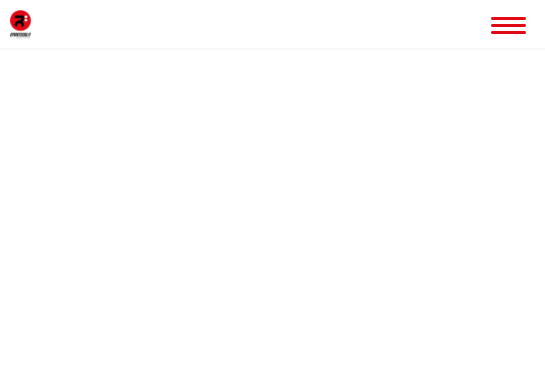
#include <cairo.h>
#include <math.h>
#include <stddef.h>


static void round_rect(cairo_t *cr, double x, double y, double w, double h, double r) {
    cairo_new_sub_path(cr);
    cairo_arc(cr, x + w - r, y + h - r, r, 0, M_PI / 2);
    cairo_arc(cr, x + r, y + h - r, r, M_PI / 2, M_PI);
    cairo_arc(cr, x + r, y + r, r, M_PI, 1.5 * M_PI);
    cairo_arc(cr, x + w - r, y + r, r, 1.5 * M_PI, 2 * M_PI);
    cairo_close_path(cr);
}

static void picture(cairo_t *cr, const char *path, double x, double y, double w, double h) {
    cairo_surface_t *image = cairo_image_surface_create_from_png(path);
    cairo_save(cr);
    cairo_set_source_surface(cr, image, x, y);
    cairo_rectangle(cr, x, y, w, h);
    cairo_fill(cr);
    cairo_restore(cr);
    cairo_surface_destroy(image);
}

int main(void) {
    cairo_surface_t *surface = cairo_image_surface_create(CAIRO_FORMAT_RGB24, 545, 371);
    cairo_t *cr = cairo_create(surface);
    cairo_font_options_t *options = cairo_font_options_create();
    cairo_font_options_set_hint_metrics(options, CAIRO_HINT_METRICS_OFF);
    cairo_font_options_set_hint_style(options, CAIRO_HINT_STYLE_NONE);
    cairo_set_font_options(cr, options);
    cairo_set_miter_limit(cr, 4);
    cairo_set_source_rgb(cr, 1, 1, 1);
    cairo_paint(cr);
    cairo_set_source_rgb(cr, 0.969, 0.973, 0.98);
    cairo_rectangle(cr, 0, 48, 545, 2);
    cairo_fill(cr);
    picture(cr, "img1.png", 10, 10, 21, 29);
    cairo_set_source_rgb(cr, 0.886, 0.039, 0.09);
    round_rect(cr, 491, 24, 35, 3, 1.5);
    cairo_fill(cr);
    round_rect(cr, 491, 17, 35, 3, 1.5);
    cairo_fill(cr);
    round_rect(cr, 491, 31, 35, 3, 1.5);
    cairo_fill(cr);
    cairo_surface_write_to_png(surface, "page.png");
    cairo_font_options_destroy(options);
    cairo_destroy(cr);
    cairo_surface_destroy(surface);
    return 0;
}
